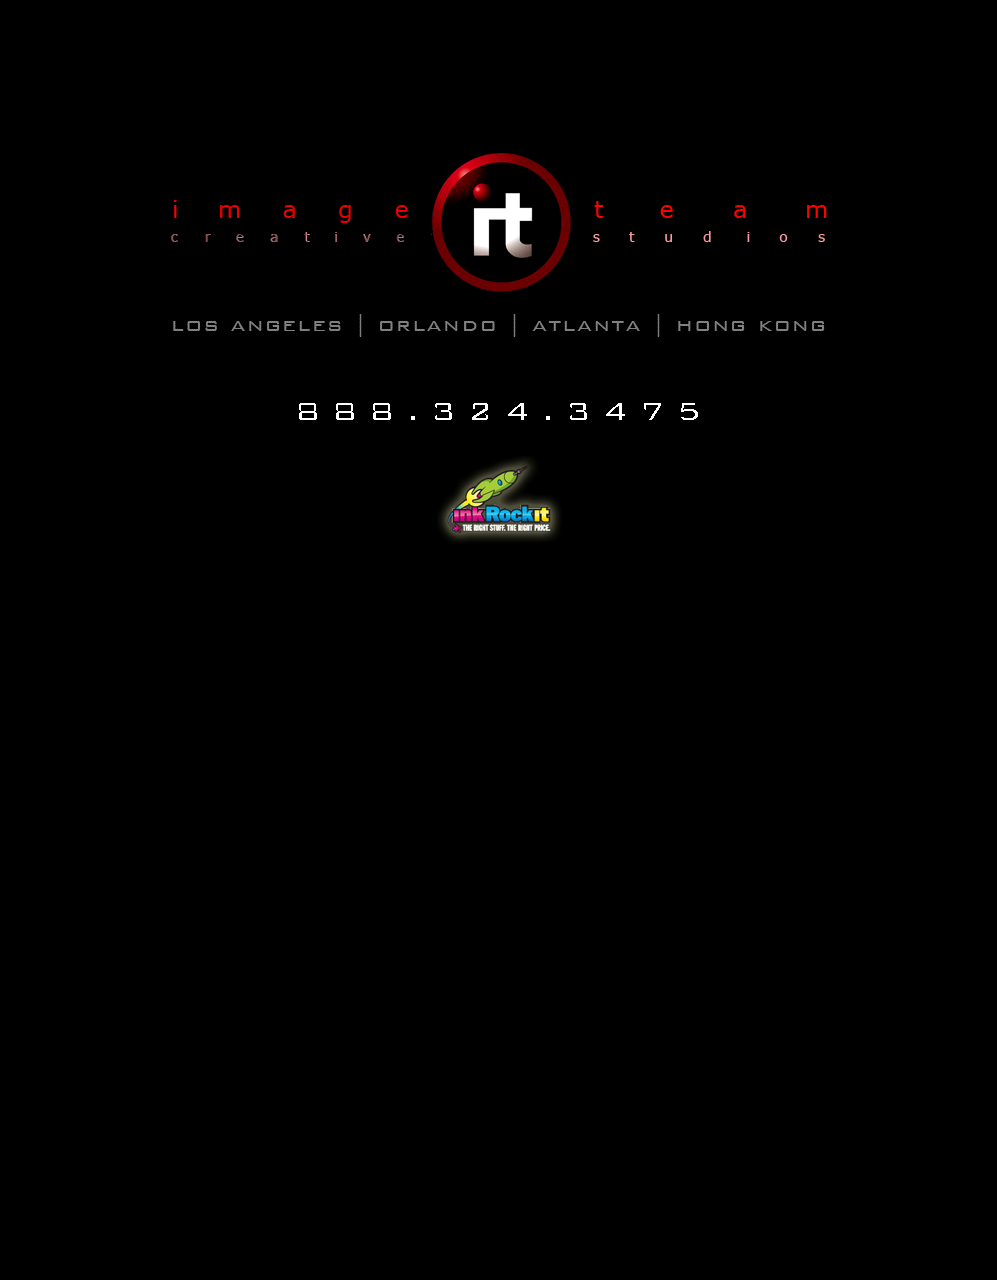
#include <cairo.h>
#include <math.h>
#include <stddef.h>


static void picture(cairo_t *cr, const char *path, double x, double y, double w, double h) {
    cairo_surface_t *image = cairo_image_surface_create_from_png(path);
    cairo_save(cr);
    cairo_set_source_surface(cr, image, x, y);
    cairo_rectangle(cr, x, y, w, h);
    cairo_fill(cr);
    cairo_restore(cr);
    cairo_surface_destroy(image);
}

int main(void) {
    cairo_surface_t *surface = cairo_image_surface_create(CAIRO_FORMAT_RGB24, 997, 1280);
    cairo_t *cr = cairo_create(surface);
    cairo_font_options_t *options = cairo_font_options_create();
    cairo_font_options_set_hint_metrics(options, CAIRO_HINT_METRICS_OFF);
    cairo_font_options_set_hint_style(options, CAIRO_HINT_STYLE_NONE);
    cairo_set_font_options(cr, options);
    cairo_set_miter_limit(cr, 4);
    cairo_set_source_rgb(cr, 0, 0, 0);
    cairo_paint(cr);
    picture(cr, "img1.png", 171, 153, 656, 139);
    picture(cr, "img2.png", 173, 314, 652, 106);
    picture(cr, "img3.png", 437, 456, 125, 88);
    cairo_surface_write_to_png(surface, "page.png");
    cairo_font_options_destroy(options);
    cairo_destroy(cr);
    cairo_surface_destroy(surface);
    return 0;
}
